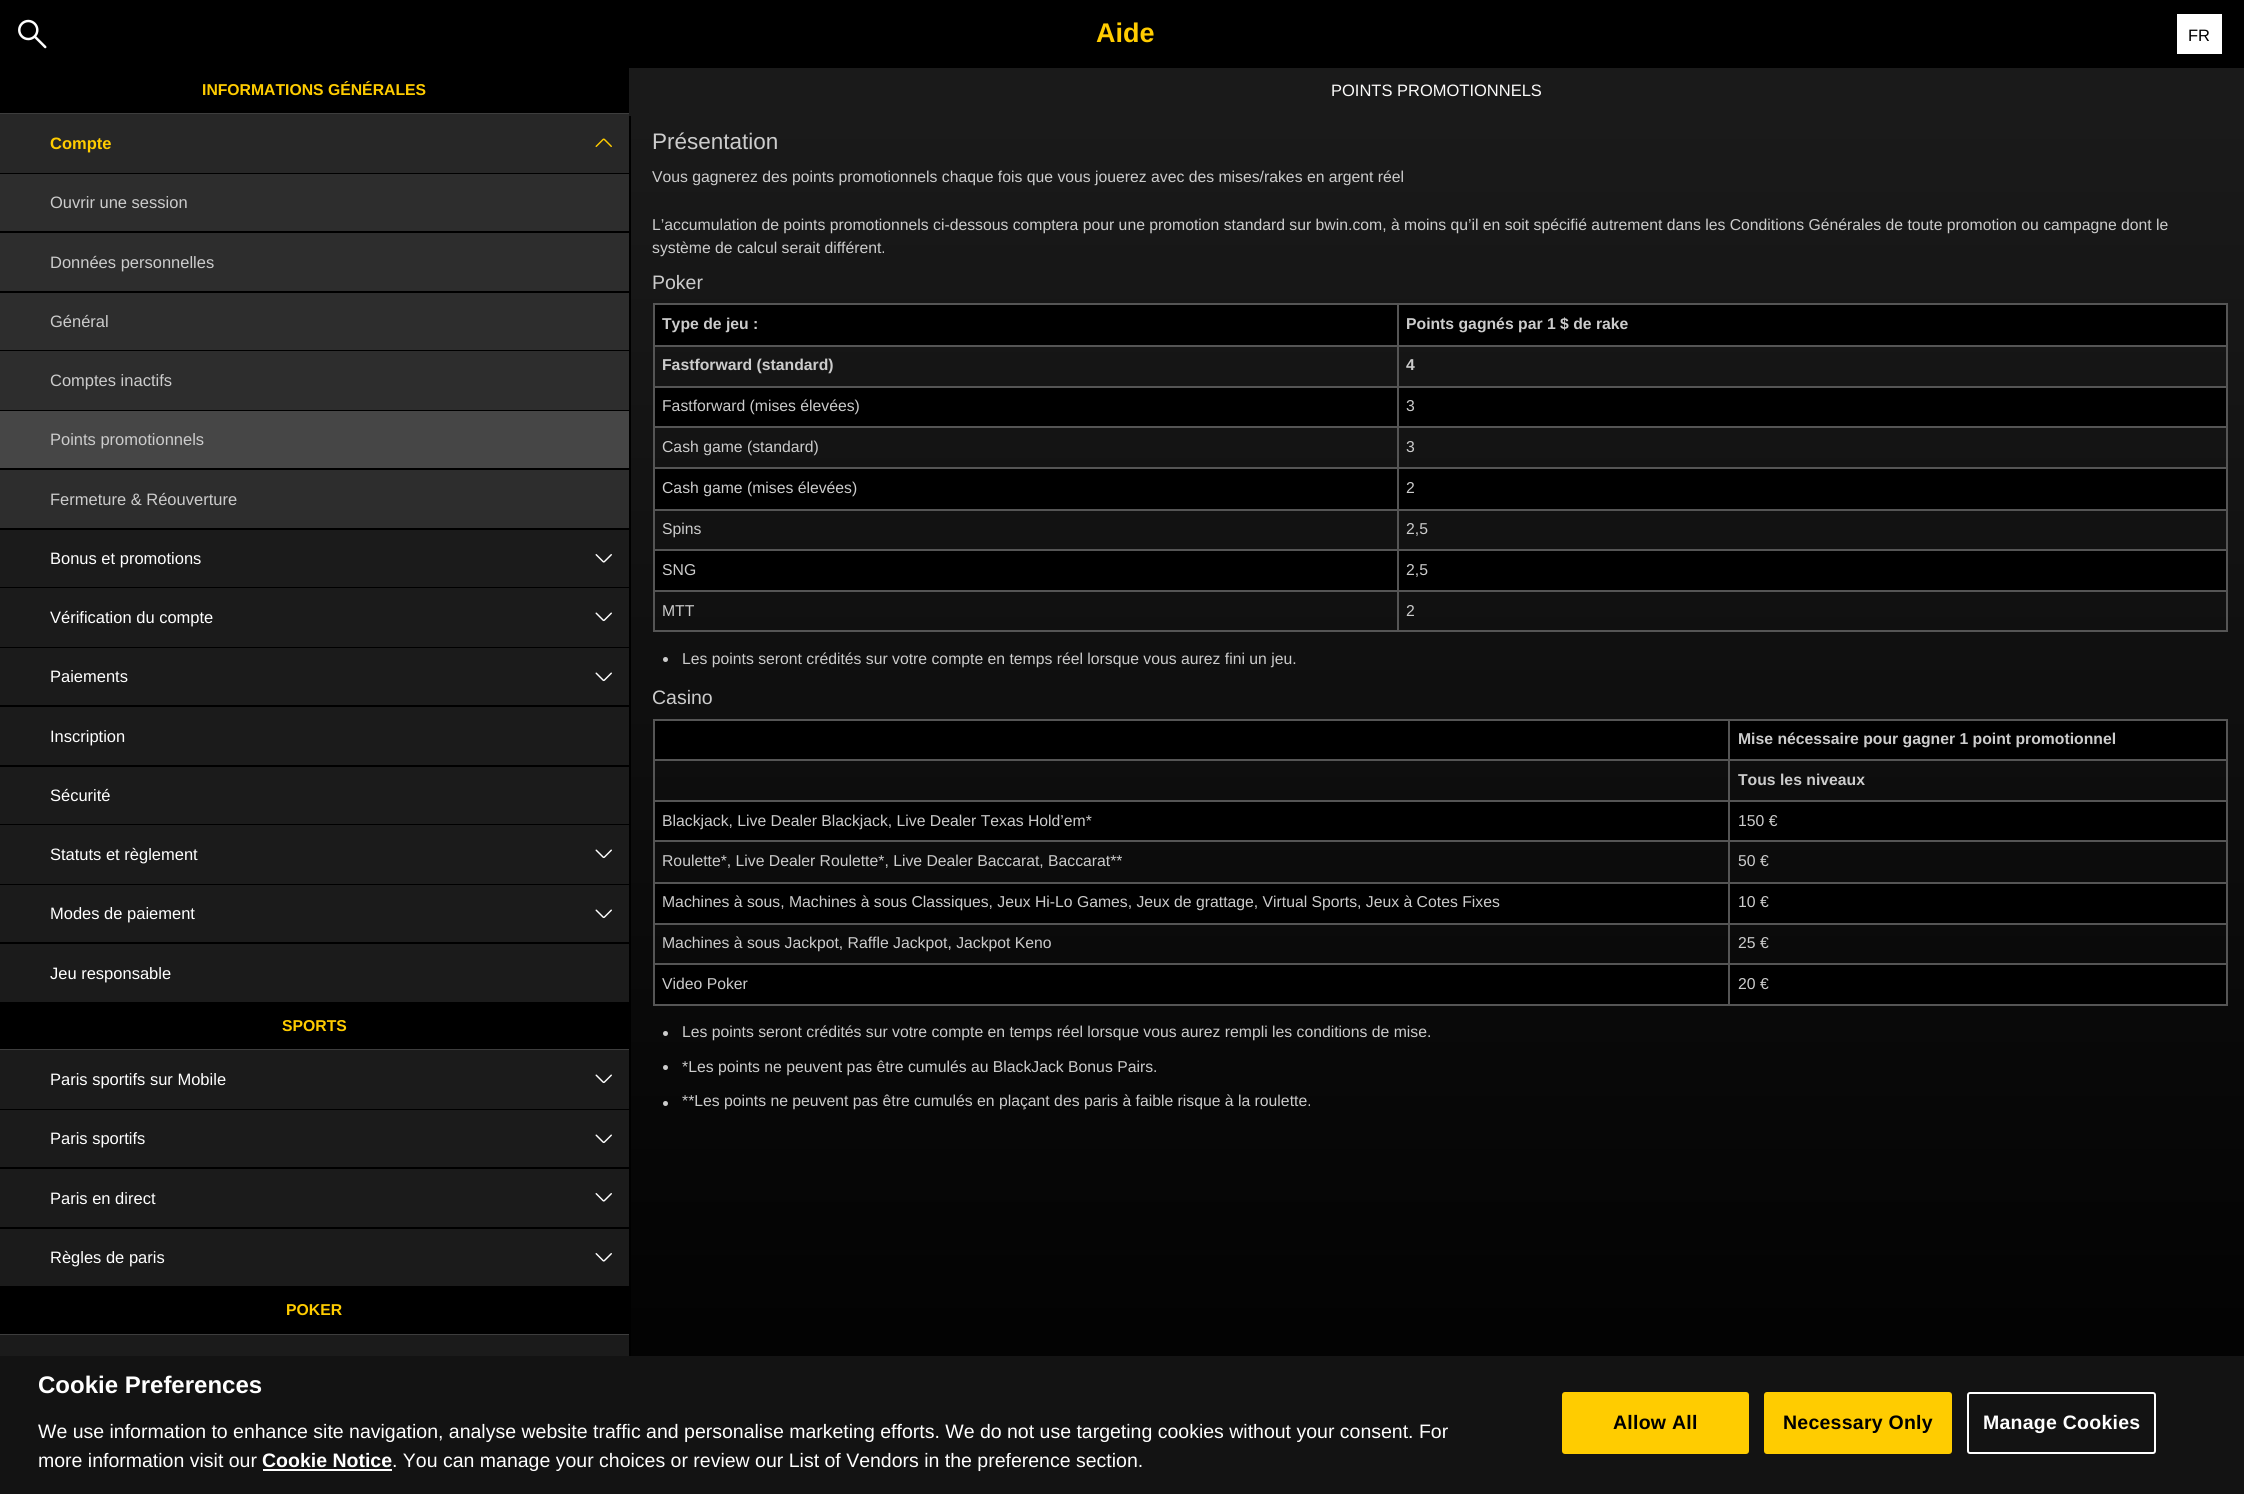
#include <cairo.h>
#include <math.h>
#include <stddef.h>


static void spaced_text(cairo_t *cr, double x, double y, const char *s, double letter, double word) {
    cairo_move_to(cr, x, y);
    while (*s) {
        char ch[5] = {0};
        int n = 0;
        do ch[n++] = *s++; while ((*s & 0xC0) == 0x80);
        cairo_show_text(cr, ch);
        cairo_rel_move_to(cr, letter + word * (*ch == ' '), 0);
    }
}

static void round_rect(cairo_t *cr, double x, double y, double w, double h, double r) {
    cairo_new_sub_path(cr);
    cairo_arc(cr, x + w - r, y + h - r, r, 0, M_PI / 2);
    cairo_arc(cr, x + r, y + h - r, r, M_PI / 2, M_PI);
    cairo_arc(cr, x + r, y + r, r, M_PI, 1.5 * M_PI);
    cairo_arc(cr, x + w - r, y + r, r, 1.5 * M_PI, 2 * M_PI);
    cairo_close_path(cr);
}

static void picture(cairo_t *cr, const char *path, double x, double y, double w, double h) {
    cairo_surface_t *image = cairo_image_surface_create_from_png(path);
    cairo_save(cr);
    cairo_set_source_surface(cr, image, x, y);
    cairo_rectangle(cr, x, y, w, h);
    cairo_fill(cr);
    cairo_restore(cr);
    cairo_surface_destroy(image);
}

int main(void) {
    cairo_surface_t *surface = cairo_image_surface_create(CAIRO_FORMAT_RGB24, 2244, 1494);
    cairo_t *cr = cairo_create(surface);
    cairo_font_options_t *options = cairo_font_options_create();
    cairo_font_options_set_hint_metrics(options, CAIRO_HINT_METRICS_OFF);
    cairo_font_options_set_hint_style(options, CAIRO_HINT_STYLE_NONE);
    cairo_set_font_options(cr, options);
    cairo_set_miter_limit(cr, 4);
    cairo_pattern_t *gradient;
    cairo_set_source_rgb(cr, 0, 0, 0);
    cairo_paint(cr);
    picture(cr, "img1.png", 18, 19, 29, 30);
    cairo_select_font_face(cr, "Liberation Sans", CAIRO_FONT_SLANT_NORMAL, CAIRO_FONT_WEIGHT_BOLD);
    cairo_set_font_size(cr, 27);
    cairo_set_source_rgb(cr, 1, 0.8, 0);
    cairo_move_to(cr, 1096, 42);
    cairo_show_text(cr, "Aide");
    cairo_set_source_rgb(cr, 1, 1, 1);
    cairo_rectangle(cr, 2177, 14, 45, 40);
    cairo_fill(cr);
    cairo_select_font_face(cr, "Liberation Sans", CAIRO_FONT_SLANT_NORMAL, CAIRO_FONT_WEIGHT_NORMAL);
    cairo_set_font_size(cr, 16.5);
    cairo_set_source_rgb(cr, 0, 0, 0);
    cairo_move_to(cr, 2188, 41);
    cairo_show_text(cr, "FR");
    cairo_set_source_rgb(cr, 0.106, 0.106, 0.106);
    cairo_rectangle(cr, 0, 530, 629, 756);
    cairo_fill(cr);
    cairo_set_source_rgb(cr, 0.239, 0.239, 0.239);
    cairo_rectangle(cr, 0, 113, 629, 1);
    cairo_fill(cr);
    cairo_select_font_face(cr, "Liberation Sans", CAIRO_FONT_SLANT_NORMAL, CAIRO_FONT_WEIGHT_BOLD);
    cairo_set_font_size(cr, 15.75);
    cairo_set_source_rgb(cr, 1, 0.8, 0);
    cairo_move_to(cr, 202, 95);
    cairo_show_text(cr, "INFORMATIONS GÉNÉRALES");
    cairo_set_source_rgb(cr, 0.153, 0.153, 0.153);
    cairo_rectangle(cr, 0, 114, 629, 59);
    cairo_fill(cr);
    cairo_set_font_size(cr, 16.5);
    cairo_set_source_rgb(cr, 1, 0.8, 0);
    cairo_move_to(cr, 50, 149);
    cairo_show_text(cr, "Compte");
    picture(cr, "img2.png", 595, 138, 17, 9);
    cairo_set_source_rgb(cr, 0.176, 0.176, 0.176);
    cairo_rectangle(cr, 0, 174, 629, 57);
    cairo_fill(cr);
    cairo_select_font_face(cr, "Liberation Sans", CAIRO_FONT_SLANT_NORMAL, CAIRO_FONT_WEIGHT_NORMAL);
    cairo_set_source_rgb(cr, 0.8, 0.8, 0.8);
    cairo_move_to(cr, 50, 208);
    cairo_show_text(cr, "Ouvrir une session");
    cairo_set_source_rgb(cr, 0.176, 0.176, 0.176);
    cairo_rectangle(cr, 0, 233, 629, 58);
    cairo_fill(cr);
    cairo_set_source_rgb(cr, 0.8, 0.8, 0.8);
    cairo_move_to(cr, 50, 268);
    cairo_show_text(cr, "Données personnelles");
    cairo_set_source_rgb(cr, 0.176, 0.176, 0.176);
    cairo_rectangle(cr, 0, 293, 629, 57);
    cairo_fill(cr);
    cairo_set_source_rgb(cr, 0.8, 0.8, 0.8);
    cairo_move_to(cr, 50, 327);
    cairo_show_text(cr, "Général");
    cairo_set_source_rgb(cr, 0.176, 0.176, 0.176);
    cairo_rectangle(cr, 0, 351, 629, 59);
    cairo_fill(cr);
    cairo_set_source_rgb(cr, 0.8, 0.8, 0.8);
    cairo_move_to(cr, 50, 386);
    cairo_show_text(cr, "Comptes inactifs");
    cairo_set_source_rgb(cr, 0.275, 0.275, 0.275);
    cairo_rectangle(cr, 0, 411, 629, 57);
    cairo_fill(cr);
    cairo_set_source_rgb(cr, 0.8, 0.8, 0.8);
    cairo_move_to(cr, 50, 445);
    cairo_show_text(cr, "Points promotionnels");
    cairo_set_source_rgb(cr, 0.176, 0.176, 0.176);
    cairo_rectangle(cr, 0, 470, 629, 58);
    cairo_fill(cr);
    cairo_set_source_rgb(cr, 0.8, 0.8, 0.8);
    cairo_move_to(cr, 50, 505);
    cairo_show_text(cr, "Fermeture & Réouverture");
    cairo_set_source_rgb(cr, 0, 0, 0);
    cairo_rectangle(cr, 0, 587, 629, 1);
    cairo_fill(cr);
    cairo_set_source_rgb(cr, 1, 1, 1);
    cairo_move_to(cr, 50, 564);
    cairo_show_text(cr, "Bonus et promotions");
    picture(cr, "img3.png", 595, 554, 17, 9);
    cairo_set_source_rgb(cr, 0, 0, 0);
    cairo_rectangle(cr, 0, 647, 629, 1);
    cairo_fill(cr);
    cairo_set_source_rgb(cr, 1, 1, 1);
    cairo_move_to(cr, 50, 623);
    cairo_show_text(cr, "Vérification du compte");
    picture(cr, "img4.png", 595, 612, 17, 10);
    cairo_set_source_rgb(cr, 0, 0, 0);
    cairo_rectangle(cr, 0, 705, 629, 2);
    cairo_fill(cr);
    cairo_set_source_rgb(cr, 1, 1, 1);
    cairo_move_to(cr, 50, 682);
    cairo_show_text(cr, "Paiements");
    picture(cr, "img4.png", 595, 672, 17, 10);
    cairo_set_source_rgb(cr, 0, 0, 0);
    cairo_rectangle(cr, 0, 765, 629, 2);
    cairo_fill(cr);
    cairo_set_source_rgb(cr, 1, 1, 1);
    cairo_move_to(cr, 50, 742);
    cairo_show_text(cr, "Inscription");
    cairo_set_source_rgb(cr, 0, 0, 0);
    cairo_rectangle(cr, 0, 824, 629, 1);
    cairo_fill(cr);
    cairo_set_source_rgb(cr, 1, 1, 1);
    cairo_move_to(cr, 50, 801);
    cairo_show_text(cr, "Sécurité");
    cairo_set_source_rgb(cr, 0, 0, 0);
    cairo_rectangle(cr, 0, 884, 629, 1);
    cairo_fill(cr);
    cairo_set_source_rgb(cr, 1, 1, 1);
    cairo_move_to(cr, 50, 860);
    cairo_show_text(cr, "Statuts et règlement");
    picture(cr, "img4.png", 595, 849, 17, 10);
    cairo_set_source_rgb(cr, 0, 0, 0);
    cairo_rectangle(cr, 0, 942, 629, 2);
    cairo_fill(cr);
    cairo_set_source_rgb(cr, 1, 1, 1);
    cairo_move_to(cr, 50, 919);
    cairo_show_text(cr, "Modes de paiement");
    picture(cr, "img4.png", 595, 909, 17, 10);
    cairo_move_to(cr, 50, 979);
    cairo_show_text(cr, "Jeu responsable");
    cairo_set_source_rgb(cr, 0, 0, 0);
    cairo_rectangle(cr, 0, 1002, 629, 47);
    cairo_fill(cr);
    cairo_set_source_rgb(cr, 0.239, 0.239, 0.239);
    cairo_rectangle(cr, 0, 1049, 629, 1);
    cairo_fill(cr);
    cairo_select_font_face(cr, "Liberation Sans", CAIRO_FONT_SLANT_NORMAL, CAIRO_FONT_WEIGHT_BOLD);
    cairo_set_font_size(cr, 15.75);
    cairo_set_source_rgb(cr, 1, 0.8, 0);
    cairo_move_to(cr, 282, 1031);
    cairo_show_text(cr, "SPORTS");
    cairo_set_source_rgb(cr, 0, 0, 0);
    cairo_rectangle(cr, 0, 1109, 629, 1);
    cairo_fill(cr);
    cairo_select_font_face(cr, "Liberation Sans", CAIRO_FONT_SLANT_NORMAL, CAIRO_FONT_WEIGHT_NORMAL);
    cairo_set_font_size(cr, 16.5);
    cairo_set_source_rgb(cr, 1, 1, 1);
    cairo_move_to(cr, 50, 1085);
    cairo_show_text(cr, "Paris sportifs sur Mobile");
    picture(cr, "img4.png", 595, 1074, 17, 10);
    cairo_set_source_rgb(cr, 0, 0, 0);
    cairo_rectangle(cr, 0, 1167, 629, 2);
    cairo_fill(cr);
    cairo_set_source_rgb(cr, 1, 1, 1);
    cairo_move_to(cr, 50, 1144);
    cairo_show_text(cr, "Paris sportifs");
    picture(cr, "img4.png", 595, 1134, 17, 10);
    cairo_set_source_rgb(cr, 0, 0, 0);
    cairo_rectangle(cr, 0, 1227, 629, 2);
    cairo_fill(cr);
    cairo_set_source_rgb(cr, 1, 1, 1);
    cairo_move_to(cr, 50, 1204);
    cairo_show_text(cr, "Paris en direct");
    picture(cr, "img3.png", 595, 1193, 17, 9);
    cairo_move_to(cr, 50, 1263);
    cairo_show_text(cr, "Règles de paris");
    picture(cr, "img3.png", 595, 1253, 17, 9);
    cairo_set_source_rgb(cr, 0.239, 0.239, 0.239);
    cairo_rectangle(cr, 0, 1334, 629, 1);
    cairo_fill(cr);
    cairo_select_font_face(cr, "Liberation Sans", CAIRO_FONT_SLANT_NORMAL, CAIRO_FONT_WEIGHT_BOLD);
    cairo_set_font_size(cr, 15.75);
    cairo_set_source_rgb(cr, 1, 0.8, 0);
    cairo_move_to(cr, 286, 1315);
    cairo_show_text(cr, "POKER");
    cairo_set_source_rgb(cr, 0.106, 0.106, 0.106);
    cairo_rectangle(cr, 0, 1335, 629, 21);
    cairo_fill(cr);
    cairo_set_source_rgb(cr, 0.102, 0.102, 0.102);
    cairo_rectangle(cr, 629, 68, 1615, 48);
    cairo_fill(cr);
    cairo_select_font_face(cr, "Liberation Sans", CAIRO_FONT_SLANT_NORMAL, CAIRO_FONT_WEIGHT_NORMAL);
    cairo_set_font_size(cr, 16.5);
    cairo_set_source_rgb(cr, 0.984, 0.98, 0.973);
    cairo_move_to(cr, 1331, 96);
    cairo_show_text(cr, "POINTS PROMOTIONNELS");
    gradient = cairo_pattern_create_linear(1437, 112, 1437, 1494);
    cairo_pattern_add_color_stop_rgba(gradient, 0, 0.102, 0.102, 0.102, 1);
    cairo_pattern_add_color_stop_rgba(gradient, 1, 0, 0, 0, 1);
    cairo_set_source(cr, gradient);
    cairo_pattern_destroy(gradient);
    cairo_rectangle(cr, 631, 116, 1613, 1240);
    cairo_fill(cr);
    cairo_set_font_size(cr, 22.5);
    cairo_set_source_rgb(cr, 0.8, 0.8, 0.8);
    cairo_move_to(cr, 652, 149);
    cairo_show_text(cr, "Présentation");
    cairo_set_font_size(cr, 15.75);
    cairo_move_to(cr, 652, 182);
    cairo_show_text(cr, "Vous gagnerez des points promotionnels chaque fois que vous jouerez avec des mises/rakes en argent réel");
    cairo_move_to(cr, 652, 230);
    cairo_show_text(cr, "L’accumulation de points promotionnels ci-dessous comptera pour une promotion standard sur bwin.com, à moins qu’il en soit spécifié autrement dans les Conditions Générales de toute promotion ou campagne dont le");
    cairo_move_to(cr, 652, 253);
    cairo_show_text(cr, "système de calcul serait différent.");
    cairo_set_font_size(cr, 19.5);
    cairo_move_to(cr, 652, 289);
    cairo_show_text(cr, "Poker");
    cairo_set_source_rgb(cr, 0.333, 0.333, 0.333);
    cairo_rectangle(cr, 653, 303, 1575, 2);
    cairo_fill(cr);
    cairo_rectangle(cr, 2226, 303, 2, 329);
    cairo_fill(cr);
    cairo_rectangle(cr, 653, 630, 1575, 2);
    cairo_fill(cr);
    cairo_rectangle(cr, 653, 303, 2, 329);
    cairo_fill(cr);
    cairo_set_source_rgb(cr, 0, 0, 0);
    cairo_rectangle(cr, 655, 305, 1571, 40);
    cairo_fill(cr);
    cairo_select_font_face(cr, "Liberation Sans", CAIRO_FONT_SLANT_NORMAL, CAIRO_FONT_WEIGHT_BOLD);
    cairo_set_font_size(cr, 15.75);
    cairo_set_source_rgb(cr, 0.8, 0.8, 0.8);
    cairo_move_to(cr, 662, 329);
    cairo_show_text(cr, "Type de jeu :");
    cairo_set_source_rgb(cr, 0.333, 0.333, 0.333);
    cairo_rectangle(cr, 1397, 345, 831, 2);
    cairo_fill(cr);
    cairo_rectangle(cr, 1397, 386, 831, 2);
    cairo_fill(cr);
    cairo_set_source_rgb(cr, 0, 0, 0);
    cairo_rectangle(cr, 655, 388, 1571, 38);
    cairo_fill(cr);
    cairo_set_source_rgb(cr, 0.333, 0.333, 0.333);
    cairo_rectangle(cr, 1397, 426, 831, 2);
    cairo_fill(cr);
    cairo_rectangle(cr, 1397, 467, 831, 2);
    cairo_fill(cr);
    cairo_set_source_rgb(cr, 0, 0, 0);
    cairo_rectangle(cr, 655, 469, 1571, 40);
    cairo_fill(cr);
    cairo_set_source_rgb(cr, 0.333, 0.333, 0.333);
    cairo_rectangle(cr, 1397, 509, 831, 2);
    cairo_fill(cr);
    cairo_rectangle(cr, 1397, 549, 831, 2);
    cairo_fill(cr);
    cairo_set_source_rgb(cr, 0, 0, 0);
    cairo_rectangle(cr, 655, 551, 1571, 39);
    cairo_fill(cr);
    cairo_set_source_rgb(cr, 0.333, 0.333, 0.333);
    cairo_rectangle(cr, 1397, 590, 831, 2);
    cairo_fill(cr);
    cairo_rectangle(cr, 1397, 590, 2, 42);
    cairo_fill(cr);
    cairo_rectangle(cr, 653, 590, 745, 2);
    cairo_fill(cr);
    cairo_rectangle(cr, 1397, 549, 2, 42);
    cairo_fill(cr);
    cairo_rectangle(cr, 653, 549, 745, 2);
    cairo_fill(cr);
    cairo_rectangle(cr, 1397, 509, 2, 42);
    cairo_fill(cr);
    cairo_rectangle(cr, 653, 509, 745, 2);
    cairo_fill(cr);
    cairo_rectangle(cr, 1397, 467, 2, 43);
    cairo_fill(cr);
    cairo_rectangle(cr, 653, 467, 745, 2);
    cairo_fill(cr);
    cairo_rectangle(cr, 1397, 426, 2, 42);
    cairo_fill(cr);
    cairo_rectangle(cr, 653, 426, 745, 2);
    cairo_fill(cr);
    cairo_rectangle(cr, 1397, 386, 2, 42);
    cairo_fill(cr);
    cairo_rectangle(cr, 653, 386, 745, 2);
    cairo_fill(cr);
    cairo_rectangle(cr, 1397, 345, 2, 42);
    cairo_fill(cr);
    cairo_rectangle(cr, 653, 345, 745, 2);
    cairo_fill(cr);
    cairo_rectangle(cr, 1397, 303, 2, 44);
    cairo_fill(cr);
    cairo_set_source_rgb(cr, 0.8, 0.8, 0.8);
    cairo_move_to(cr, 1406, 329);
    cairo_show_text(cr, "Points gagnés par 1 $ de rake");
    cairo_move_to(cr, 662, 370);
    cairo_show_text(cr, "Fastforward (standard)");
    cairo_move_to(cr, 1406, 370);
    cairo_show_text(cr, "4");
    cairo_select_font_face(cr, "Liberation Sans", CAIRO_FONT_SLANT_NORMAL, CAIRO_FONT_WEIGHT_NORMAL);
    cairo_move_to(cr, 662, 411);
    cairo_show_text(cr, "Fastforward (mises élevées)");
    cairo_move_to(cr, 1406, 411);
    cairo_show_text(cr, "3");
    cairo_move_to(cr, 662, 452);
    cairo_show_text(cr, "Cash game (standard)");
    cairo_move_to(cr, 1406, 452);
    cairo_show_text(cr, "3");
    cairo_move_to(cr, 662, 493);
    cairo_show_text(cr, "Cash game (mises élevées)");
    cairo_move_to(cr, 1406, 493);
    cairo_show_text(cr, "2");
    cairo_move_to(cr, 662, 534);
    cairo_show_text(cr, "Spins");
    cairo_move_to(cr, 1406, 534);
    cairo_show_text(cr, "2,5");
    cairo_move_to(cr, 662, 575);
    cairo_show_text(cr, "SNG");
    cairo_move_to(cr, 1406, 575);
    cairo_show_text(cr, "2,5");
    cairo_move_to(cr, 662, 616);
    cairo_show_text(cr, "MTT");
    cairo_move_to(cr, 1406, 616);
    cairo_show_text(cr, "2");
    cairo_new_path(cr);
    cairo_arc(cr, 665.5, 659.5, 2.5, 0, 2 * M_PI);
    cairo_fill(cr);
    cairo_move_to(cr, 682, 664);
    cairo_show_text(cr, "Les points seront crédités sur votre compte en temps réel lorsque vous aurez fini un jeu.");
    cairo_set_font_size(cr, 19.5);
    cairo_move_to(cr, 652, 704);
    cairo_show_text(cr, "Casino");
    cairo_set_source_rgb(cr, 0.333, 0.333, 0.333);
    cairo_rectangle(cr, 653, 719, 1575, 2);
    cairo_fill(cr);
    cairo_rectangle(cr, 2226, 719, 2, 286);
    cairo_fill(cr);
    cairo_rectangle(cr, 653, 1004, 1575, 2);
    cairo_fill(cr);
    cairo_rectangle(cr, 653, 719, 2, 286);
    cairo_fill(cr);
    cairo_set_source_rgb(cr, 0, 0, 0);
    cairo_rectangle(cr, 655, 721, 1571, 38);
    cairo_fill(cr);
    cairo_set_source_rgb(cr, 0.333, 0.333, 0.333);
    cairo_rectangle(cr, 1728, 759, 500, 2);
    cairo_fill(cr);
    cairo_rectangle(cr, 1728, 800, 500, 2);
    cairo_fill(cr);
    cairo_set_source_rgb(cr, 0, 0, 0);
    cairo_rectangle(cr, 655, 802, 1571, 38);
    cairo_fill(cr);
    cairo_set_source_rgb(cr, 0.333, 0.333, 0.333);
    cairo_rectangle(cr, 1728, 840, 500, 2);
    cairo_fill(cr);
    cairo_rectangle(cr, 1728, 882, 500, 2);
    cairo_fill(cr);
    cairo_set_source_rgb(cr, 0, 0, 0);
    cairo_rectangle(cr, 655, 884, 1571, 39);
    cairo_fill(cr);
    cairo_set_source_rgb(cr, 0.333, 0.333, 0.333);
    cairo_rectangle(cr, 1728, 923, 500, 2);
    cairo_fill(cr);
    cairo_rectangle(cr, 1728, 963, 500, 2);
    cairo_fill(cr);
    cairo_set_source_rgb(cr, 0, 0, 0);
    cairo_rectangle(cr, 655, 965, 1571, 39);
    cairo_fill(cr);
    cairo_set_source_rgb(cr, 0.333, 0.333, 0.333);
    cairo_rectangle(cr, 1728, 963, 2, 42);
    cairo_fill(cr);
    cairo_rectangle(cr, 653, 963, 1077, 2);
    cairo_fill(cr);
    cairo_rectangle(cr, 1728, 923, 2, 42);
    cairo_fill(cr);
    cairo_rectangle(cr, 653, 923, 1077, 2);
    cairo_fill(cr);
    cairo_rectangle(cr, 1728, 882, 2, 42);
    cairo_fill(cr);
    cairo_rectangle(cr, 653, 882, 1077, 2);
    cairo_fill(cr);
    cairo_rectangle(cr, 1728, 840, 2, 44);
    cairo_fill(cr);
    cairo_rectangle(cr, 653, 840, 1077, 2);
    cairo_fill(cr);
    cairo_rectangle(cr, 1728, 800, 2, 42);
    cairo_fill(cr);
    cairo_rectangle(cr, 653, 800, 1077, 2);
    cairo_fill(cr);
    cairo_rectangle(cr, 1728, 759, 2, 42);
    cairo_fill(cr);
    cairo_rectangle(cr, 653, 759, 1077, 2);
    cairo_fill(cr);
    cairo_rectangle(cr, 1728, 719, 2, 42);
    cairo_fill(cr);
    cairo_select_font_face(cr, "Liberation Sans", CAIRO_FONT_SLANT_NORMAL, CAIRO_FONT_WEIGHT_BOLD);
    cairo_set_font_size(cr, 15.75);
    cairo_set_source_rgb(cr, 0.8, 0.8, 0.8);
    cairo_move_to(cr, 1738, 744);
    cairo_show_text(cr, "Mise nécessaire pour gagner 1 point promotionnel");
    cairo_move_to(cr, 1738, 785);
    cairo_show_text(cr, "Tous les niveaux");
    cairo_select_font_face(cr, "Liberation Sans", CAIRO_FONT_SLANT_NORMAL, CAIRO_FONT_WEIGHT_NORMAL);
    cairo_move_to(cr, 662, 826);
    cairo_show_text(cr, "Blackjack, Live Dealer Blackjack, Live Dealer Texas Hold’em*");
    cairo_move_to(cr, 1738, 826);
    cairo_show_text(cr, "150 €");
    cairo_move_to(cr, 662, 866);
    cairo_show_text(cr, "Roulette*, Live Dealer Roulette*, Live Dealer Baccarat, Baccarat**");
    cairo_move_to(cr, 1738, 866);
    cairo_show_text(cr, "50 €");
    cairo_move_to(cr, 662, 907);
    cairo_show_text(cr, "Machines à sous, Machines à sous Classiques, Jeux Hi-Lo Games, Jeux de grattage, Virtual Sports, Jeux à Cotes Fixes");
    cairo_move_to(cr, 1738, 907);
    cairo_show_text(cr, "10 €");
    cairo_move_to(cr, 662, 948);
    cairo_show_text(cr, "Machines à sous Jackpot, Raffle Jackpot, Jackpot Keno");
    cairo_move_to(cr, 1738, 948);
    cairo_show_text(cr, "25 €");
    cairo_move_to(cr, 662, 989);
    cairo_show_text(cr, "Video Poker");
    cairo_move_to(cr, 1738, 989);
    cairo_show_text(cr, "20 €");
    cairo_new_path(cr);
    cairo_arc(cr, 665.5, 1033.5, 2.5, 0, 2 * M_PI);
    cairo_fill(cr);
    cairo_move_to(cr, 682, 1037);
    cairo_show_text(cr, "Les points seront crédités sur votre compte en temps réel lorsque vous aurez rempli les conditions de mise.");
    cairo_new_path(cr);
    cairo_arc(cr, 665.5, 1067.5, 2.5, 0, 2 * M_PI);
    cairo_fill(cr);
    cairo_move_to(cr, 682, 1072);
    cairo_show_text(cr, "*Les points ne peuvent pas être cumulés au BlackJack Bonus Pairs.");
    cairo_new_path(cr);
    cairo_arc(cr, 665.5, 1103.5, 2.5, 0, 2 * M_PI);
    cairo_fill(cr);
    cairo_move_to(cr, 682, 1106);
    cairo_show_text(cr, "**Les points ne peuvent pas être cumulés en plaçant des paris à faible risque à la roulette.");
    cairo_set_source_rgb(cr, 0.078, 0.078, 0.078);
    cairo_rectangle(cr, 0, 1356, 2244, 138);
    cairo_fill(cr);
    cairo_select_font_face(cr, "Liberation Sans", CAIRO_FONT_SLANT_NORMAL, CAIRO_FONT_WEIGHT_BOLD);
    cairo_set_font_size(cr, 24);
    cairo_set_source_rgb(cr, 1, 1, 1);
    cairo_move_to(cr, 38, 1393);
    cairo_show_text(cr, "Cookie Preferences");
    cairo_select_font_face(cr, "Liberation Sans", CAIRO_FONT_SLANT_NORMAL, CAIRO_FONT_WEIGHT_NORMAL);
    cairo_set_font_size(cr, 19.5);
    cairo_move_to(cr, 38, 1438);
    cairo_show_text(cr, "We use information to enhance site navigation, analyse website traffic and personalise marketing efforts. We do not use targeting cookies without your consent. For");
    cairo_move_to(cr, 38, 1467);
    cairo_show_text(cr, "more information visit our");
    cairo_select_font_face(cr, "Liberation Sans", CAIRO_FONT_SLANT_NORMAL, CAIRO_FONT_WEIGHT_BOLD);
    cairo_move_to(cr, 262, 1467);
    cairo_show_text(cr, "Cookie Notice");
    cairo_rectangle(cr, 263, 1469, 129, 2);
    cairo_fill(cr);
    cairo_select_font_face(cr, "Liberation Sans", CAIRO_FONT_SLANT_NORMAL, CAIRO_FONT_WEIGHT_NORMAL);
    cairo_move_to(cr, 392, 1467);
    cairo_show_text(cr, ". You can manage your choices or review our List of Vendors in the preference section.");
    cairo_set_source_rgb(cr, 1, 0.8, 0);
    round_rect(cr, 1563, 1393, 185, 60, 2);
    cairo_fill_preserve(cr);
    cairo_stroke(cr);
    cairo_select_font_face(cr, "Liberation Sans", CAIRO_FONT_SLANT_NORMAL, CAIRO_FONT_WEIGHT_BOLD);
    cairo_set_source_rgb(cr, 0, 0, 0);
    spaced_text(cr, 1613, 1429, "Allow All", 0.25, 0);
    cairo_set_source_rgb(cr, 1, 0.8, 0);
    round_rect(cr, 1765, 1393, 186, 60, 2);
    cairo_fill_preserve(cr);
    cairo_stroke(cr);
    cairo_set_source_rgb(cr, 0, 0, 0);
    spaced_text(cr, 1783, 1429, "Necessary Only", 0.25, 0);
    round_rect(cr, 1968, 1393, 187, 60, 2);
    cairo_set_source_rgb(cr, 1, 1, 1);
    cairo_stroke(cr);
    spaced_text(cr, 1983, 1429, "Manage Cookies", 0.25, 0);
    cairo_surface_write_to_png(surface, "page.png");
    cairo_font_options_destroy(options);
    cairo_destroy(cr);
    cairo_surface_destroy(surface);
    return 0;
}
